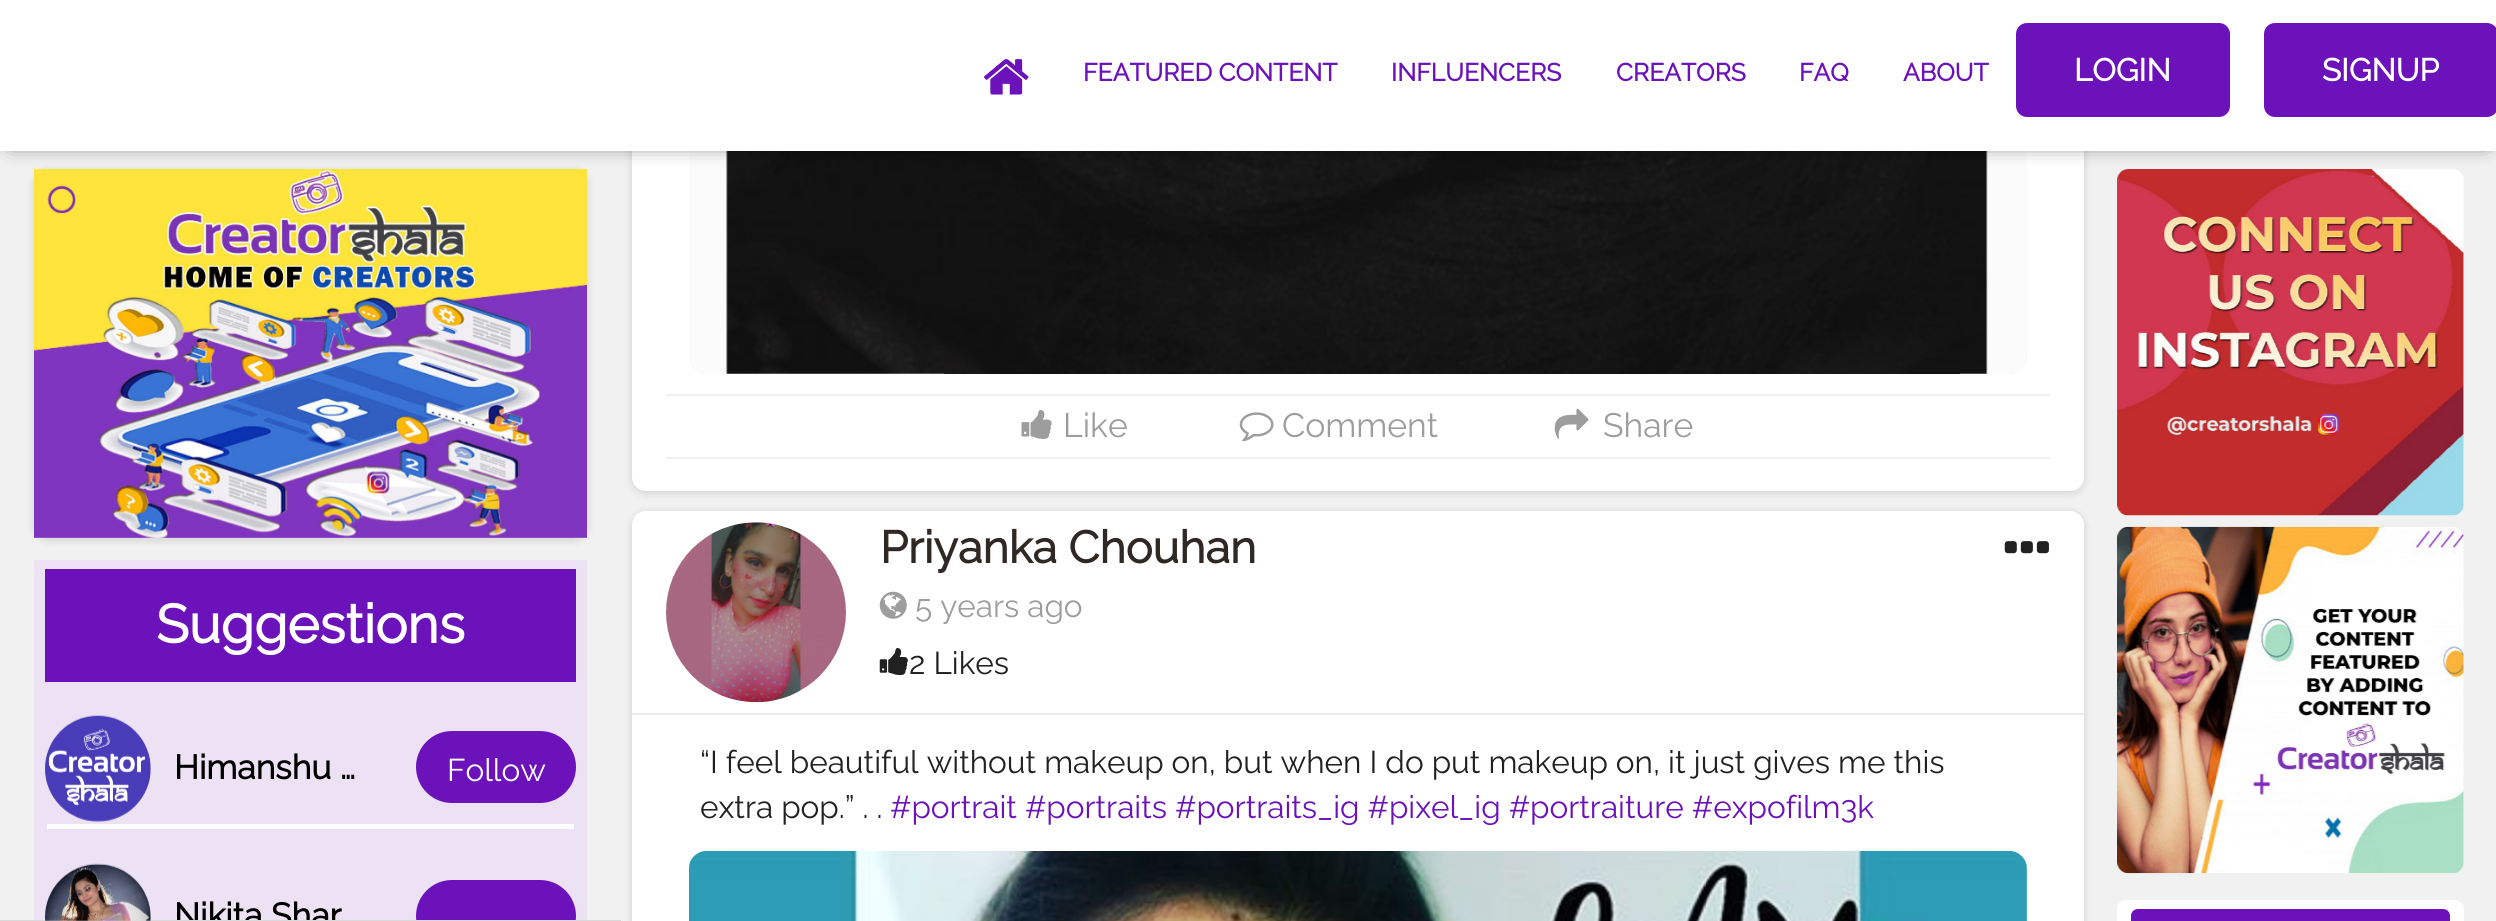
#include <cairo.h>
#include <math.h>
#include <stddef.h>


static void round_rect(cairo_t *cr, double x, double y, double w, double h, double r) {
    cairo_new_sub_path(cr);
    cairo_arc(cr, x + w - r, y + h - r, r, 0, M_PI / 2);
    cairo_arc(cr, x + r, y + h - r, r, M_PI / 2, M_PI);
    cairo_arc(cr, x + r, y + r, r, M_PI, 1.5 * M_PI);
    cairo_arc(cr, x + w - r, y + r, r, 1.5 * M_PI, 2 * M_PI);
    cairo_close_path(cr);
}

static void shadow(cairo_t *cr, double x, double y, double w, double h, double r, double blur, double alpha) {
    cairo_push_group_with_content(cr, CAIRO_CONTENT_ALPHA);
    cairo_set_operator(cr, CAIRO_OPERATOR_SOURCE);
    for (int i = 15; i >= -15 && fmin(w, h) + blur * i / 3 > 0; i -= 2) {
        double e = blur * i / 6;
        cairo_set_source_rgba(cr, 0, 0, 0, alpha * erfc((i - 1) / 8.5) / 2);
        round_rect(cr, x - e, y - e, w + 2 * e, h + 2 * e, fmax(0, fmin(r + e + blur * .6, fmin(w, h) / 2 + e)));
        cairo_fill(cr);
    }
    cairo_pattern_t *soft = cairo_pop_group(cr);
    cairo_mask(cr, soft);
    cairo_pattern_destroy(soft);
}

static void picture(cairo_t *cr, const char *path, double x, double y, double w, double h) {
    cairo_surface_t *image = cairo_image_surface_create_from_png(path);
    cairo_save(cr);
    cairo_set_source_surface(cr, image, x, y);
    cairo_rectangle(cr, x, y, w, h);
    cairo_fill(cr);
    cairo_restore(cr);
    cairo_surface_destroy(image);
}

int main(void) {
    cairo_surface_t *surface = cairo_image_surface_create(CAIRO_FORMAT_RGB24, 2496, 921);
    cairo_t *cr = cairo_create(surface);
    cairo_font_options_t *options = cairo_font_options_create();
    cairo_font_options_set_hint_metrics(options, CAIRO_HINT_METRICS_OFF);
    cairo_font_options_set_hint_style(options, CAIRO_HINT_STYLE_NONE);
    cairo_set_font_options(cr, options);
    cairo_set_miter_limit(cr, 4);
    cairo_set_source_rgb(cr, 0.945, 0.945, 0.945);
    cairo_paint(cr);
    cairo_set_source_rgb(cr, 0, 0, 0);
    shadow(cr, 34, 171, 553, 369, 14, 4.5, 0.14);
    picture(cr, "img2.png", 34, 169, 553, 369);
    shadow(cr, 632, -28, 1452, 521, 14, 4.5, 0.14);
    cairo_set_source_rgb(cr, 1, 1, 1);
    round_rect(cr, 632, -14, 1452, 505, 14);
    cairo_fill(cr);
    cairo_save(cr);
    round_rect(cr, 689, -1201, 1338, 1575, 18);
    cairo_clip(cr);
    cairo_set_source_rgb(cr, 0.616, 0.616, 0.616);
    shadow(cr, 691, -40, 1334, 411, 16, 8, 1);
    cairo_restore(cr);
    cairo_set_source_rgb(cr, 0.984, 0.984, 0.984);
    round_rect(cr, 689, -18, 1338, 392, 18);
    cairo_fill(cr);
    picture(cr, "img5.png", 726, 151, 1262, 223);
    picture(cr, "img14.png", 2117, 169, 347, 347);
    cairo_set_source_rgb(cr, 0, 0, 0);
    shadow(cr, 11, 11, 2475, 129, 0, 11, 1);
    cairo_set_source_rgb(cr, 1, 1, 1);
    cairo_rectangle(cr, 0, 0, 2496, 151);
    cairo_fill(cr);
    picture(cr, "img1.png", 984, 59, 45, 36);
    cairo_select_font_face(cr, "Raleway", CAIRO_FONT_SLANT_NORMAL, CAIRO_FONT_WEIGHT_BOLD);
    cairo_set_font_size(cr, 24.75);
    cairo_set_source_rgb(cr, 0.424, 0.071, 0.733);
    cairo_move_to(cr, 1083, 81);
    cairo_show_text(cr, "FEATURED CONTENT");
    cairo_move_to(cr, 1391, 81);
    cairo_show_text(cr, "INFLUENCERS");
    cairo_move_to(cr, 1616, 81);
    cairo_show_text(cr, "CREATORS");
    cairo_move_to(cr, 1799, 81);
    cairo_show_text(cr, "FAQ");
    cairo_move_to(cr, 1903, 81);
    cairo_show_text(cr, "ABOUT");
    round_rect(cr, 2016, 23, 214, 94, 11);
    cairo_fill(cr);
    cairo_set_font_size(cr, 31.5);
    cairo_set_source_rgb(cr, 1, 1, 1);
    cairo_move_to(cr, 2074, 81);
    cairo_show_text(cr, "LOGIN");
    cairo_set_source_rgb(cr, 0.424, 0.071, 0.733);
    round_rect(cr, 2264, 23, 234, 94, 11);
    cairo_fill(cr);
    cairo_set_source_rgb(cr, 1, 1, 1);
    cairo_move_to(cr, 2322, 81);
    cairo_show_text(cr, "SIGNUP");
    cairo_set_source_rgb(cr, 0, 0, 0);
    shadow(cr, 632, 513, 1452, 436, 14, 4.5, 0.14);
    cairo_set_source_rgb(cr, 0.851, 0.851, 0.851);
    cairo_rectangle(cr, 0, 920, 621, 1);
    cairo_fill(cr);
    cairo_set_source_rgb(cr, 0.929, 0.882, 0.957);
    cairo_rectangle(cr, 34, 560, 553, 360);
    cairo_fill(cr);
    cairo_set_source_rgb(cr, 0.424, 0.071, 0.733);
    cairo_rectangle(cr, 45, 569, 531, 113);
    cairo_fill(cr);
    cairo_set_font_size(cr, 54);
    cairo_set_source_rgb(cr, 1, 1, 1);
    cairo_move_to(cr, 156, 643);
    cairo_show_text(cr, "Suggestions");
    picture(cr, "img3.png", 45, 715, 106, 107);
    cairo_set_font_size(cr, 33.75);
    cairo_set_source_rgb(cr, 0, 0, 0);
    cairo_move_to(cr, 174, 779);
    cairo_show_text(cr, "Himanshu …");
    cairo_set_source_rgb(cr, 0.424, 0.071, 0.733);
    round_rect(cr, 416, 731, 160, 72, 36);
    cairo_fill(cr);
    cairo_select_font_face(cr, "Raleway Thin", CAIRO_FONT_SLANT_NORMAL, CAIRO_FONT_WEIGHT_NORMAL);
    cairo_set_font_size(cr, 31.5);
    cairo_set_source_rgb(cr, 1, 1, 1);
    cairo_move_to(cr, 447, 781);
    cairo_show_text(cr, "Follow");
    cairo_rectangle(cr, 47, 824, 527, 5);
    cairo_fill(cr);
    picture(cr, "img4.png", 45, 863, 106, 58);
    cairo_save(cr);
    cairo_rectangle(cr, 151, 893, 265, 27);
    cairo_clip(cr);
    cairo_select_font_face(cr, "Raleway", CAIRO_FONT_SLANT_NORMAL, CAIRO_FONT_WEIGHT_BOLD);
    cairo_set_font_size(cr, 33.75);
    cairo_set_source_rgb(cr, 0, 0, 0);
    cairo_move_to(cr, 174, 927);
    cairo_show_text(cr, "Nikita Shar");
    cairo_restore(cr);
    cairo_save(cr);
    cairo_rectangle(cr, 0, 158, 621, 762);
    cairo_clip(cr);
    cairo_set_source_rgb(cr, 0.424, 0.071, 0.733);
    round_rect(cr, 416, 880, 160, 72, 36);
    cairo_fill(cr);
    cairo_restore(cr);
    cairo_set_source_rgb(cr, 0.941, 0.941, 0.941);
    cairo_rectangle(cr, 666, 394, 1384, 2);
    cairo_fill(cr);
    cairo_rectangle(cr, 666, 457, 1384, 2);
    cairo_fill(cr);
    picture(cr, "img6.png", 1021, 410, 31, 29);
    cairo_set_font_size(cr, 33.75);
    cairo_set_source_rgb(cr, 0.616, 0.616, 0.616);
    cairo_move_to(cr, 1063, 437);
    cairo_show_text(cr, "Like");
    picture(cr, "img7.png", 1239, 412, 35, 30);
    cairo_move_to(cr, 1282, 437);
    cairo_show_text(cr, "Comment");
    picture(cr, "img8.png", 1554, 408, 35, 31);
    cairo_move_to(cr, 1603, 437);
    cairo_show_text(cr, "Share");
    cairo_set_source_rgb(cr, 1, 1, 1);
    round_rect(cr, 632, 511, 1452, 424, 14);
    cairo_fill(cr);
    cairo_set_source_rgb(cr, 0.929, 0.929, 0.929);
    cairo_rectangle(cr, 632, 713, 1452, 2);
    cairo_fill(cr);
    picture(cr, "img9.png", 666, 522, 180, 181);
    cairo_select_font_face(cr, "Raleway", CAIRO_FONT_SLANT_NORMAL, CAIRO_FONT_WEIGHT_BOLD);
    cairo_set_font_size(cr, 45);
    cairo_set_source_rgb(cr, 0.188, 0.157, 0.145);
    cairo_move_to(cr, 880, 563);
    cairo_show_text(cr, "Priyanka Chouhan");
    picture(cr, "img10.png", 879, 591, 28, 28);
    cairo_select_font_face(cr, "Raleway Thin", CAIRO_FONT_SLANT_NORMAL, CAIRO_FONT_WEIGHT_NORMAL);
    cairo_set_font_size(cr, 31.5);
    cairo_set_source_rgb(cr, 0.616, 0.616, 0.616);
    cairo_move_to(cr, 915, 617);
    cairo_show_text(cr, "5 years ago");
    picture(cr, "img11.png", 879, 648, 29, 27);
    cairo_set_source_rgb(cr, 0.129, 0.129, 0.129);
    cairo_move_to(cr, 909, 674);
    cairo_show_text(cr, "2 Likes");
    picture(cr, "img12.png", 2004, 541, 45, 13);
    cairo_move_to(cr, 700, 773);
    cairo_show_text(cr, "“I feel beautiful without makeup on, but when I do put makeup on, it just gives me this");
    cairo_move_to(cr, 700, 818);
    cairo_show_text(cr, "extra pop.” . .");
    cairo_set_source_rgb(cr, 0.424, 0.071, 0.733);
    cairo_move_to(cr, 890, 818);
    cairo_show_text(cr, "#portrait #portraits #portraits_ig #pixel_ig #portraiture #expofilm3k");
    cairo_save(cr);
    round_rect(cr, 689, 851, 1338, 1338, 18);
    cairo_clip(cr);
    cairo_set_source_rgb(cr, 0.616, 0.616, 0.616);
    shadow(cr, 691, 853, 1334, 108, 16, 8, 1);
    cairo_restore(cr);
    picture(cr, "img13.png", 689, 851, 1339, 70);
    picture(cr, "img15.png", 2117, 526, 347, 348);
    cairo_set_source_rgb(cr, 1, 1, 1);
    cairo_new_path(cr);
    cairo_move_to(cr, 2126, 900);
    cairo_line_to(cr, 2455, 900);
    cairo_curve_to(cr, 2460, 900, 2464, 904, 2464, 909);
    cairo_line_to(cr, 2464, 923);
    cairo_line_to(cr, 2117, 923);
    cairo_line_to(cr, 2117, 909);
    cairo_curve_to(cr, 2117, 904, 2121, 900, 2126, 900);
    cairo_close_path(cr);
    cairo_fill(cr);
    cairo_set_source_rgb(cr, 0.424, 0.071, 0.733);
    cairo_new_path(cr);
    cairo_move_to(cr, 2138, 909);
    cairo_line_to(cr, 2443, 909);
    cairo_curve_to(cr, 2447, 909, 2450, 912, 2450, 916);
    cairo_line_to(cr, 2450, 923);
    cairo_line_to(cr, 2131, 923);
    cairo_line_to(cr, 2131, 916);
    cairo_curve_to(cr, 2131, 912, 2134, 909, 2138, 909);
    cairo_close_path(cr);
    cairo_fill(cr);
    cairo_surface_write_to_png(surface, "page.png");
    cairo_font_options_destroy(options);
    cairo_destroy(cr);
    cairo_surface_destroy(surface);
    return 0;
}
